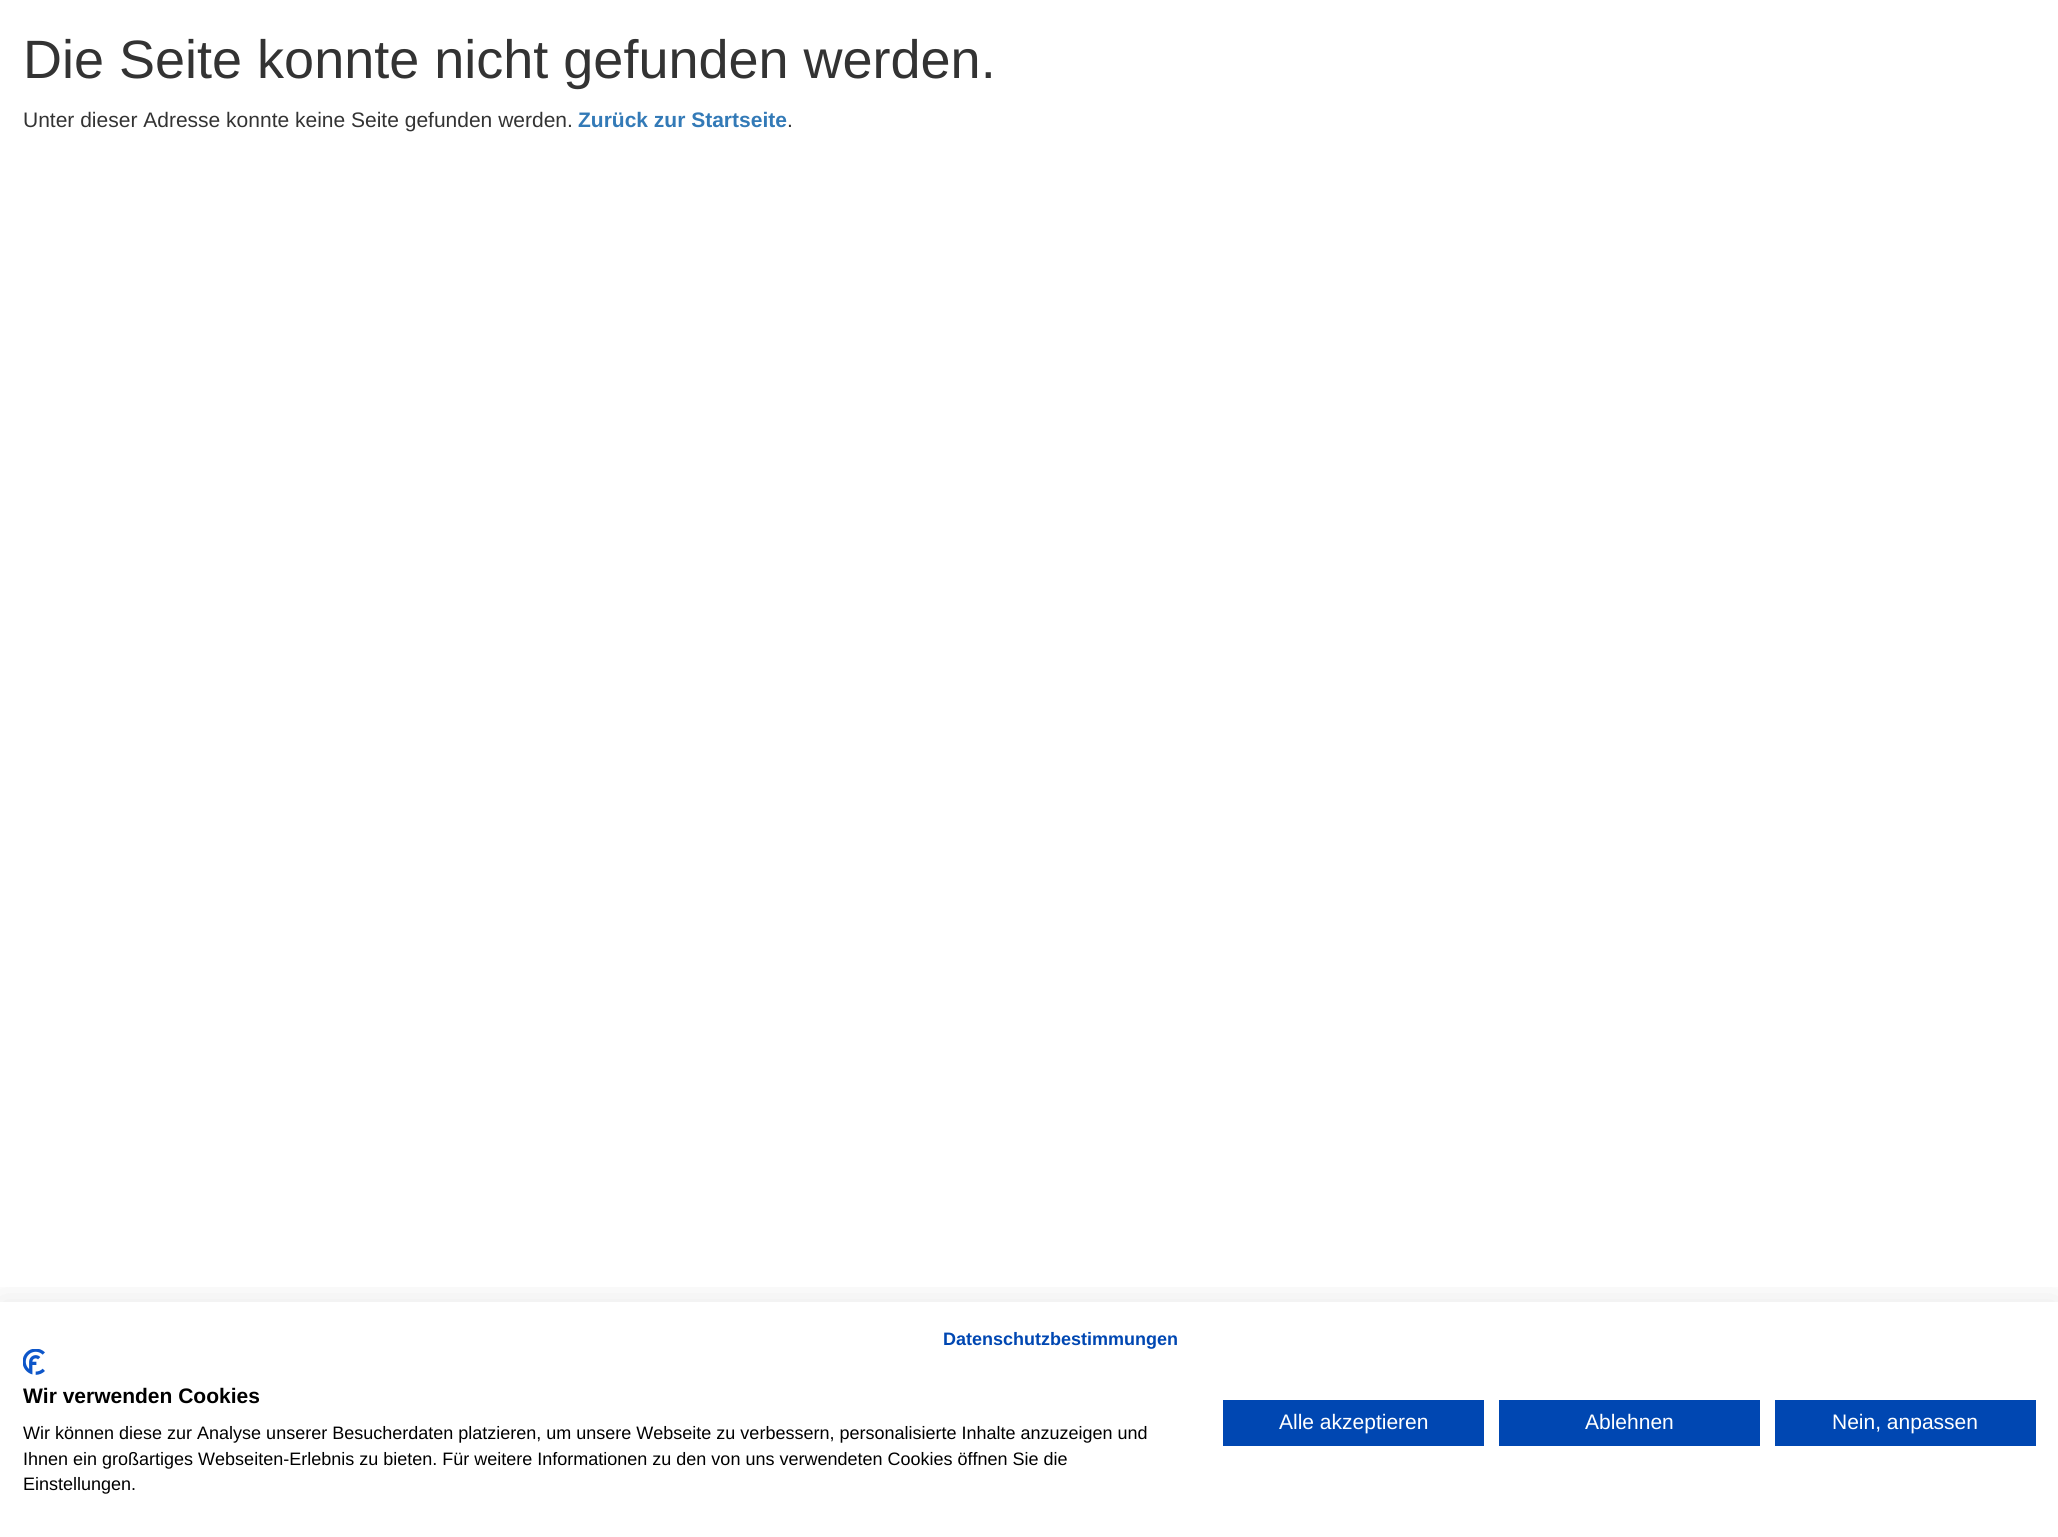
#include <cairo.h>
#include <math.h>
#include <stddef.h>


static void round_rect(cairo_t *cr, double x, double y, double w, double h, double r) {
    cairo_new_sub_path(cr);
    cairo_arc(cr, x + w - r, y + h - r, r, 0, M_PI / 2);
    cairo_arc(cr, x + r, y + h - r, r, M_PI / 2, M_PI);
    cairo_arc(cr, x + r, y + r, r, M_PI, 1.5 * M_PI);
    cairo_arc(cr, x + w - r, y + r, r, 1.5 * M_PI, 2 * M_PI);
    cairo_close_path(cr);
}

static void shadow(cairo_t *cr, double x, double y, double w, double h, double r, double blur, double alpha) {
    cairo_push_group_with_content(cr, CAIRO_CONTENT_ALPHA);
    cairo_set_operator(cr, CAIRO_OPERATOR_SOURCE);
    for (int i = 15; i >= -15 && fmin(w, h) + blur * i / 3 > 0; i -= 2) {
        double e = blur * i / 6;
        cairo_set_source_rgba(cr, 0, 0, 0, alpha * erfc((i - 1) / 8.5) / 2);
        round_rect(cr, x - e, y - e, w + 2 * e, h + 2 * e, fmax(0, fmin(r + e + blur * .6, fmin(w, h) / 2 + e)));
        cairo_fill(cr);
    }
    cairo_pattern_t *soft = cairo_pop_group(cr);
    cairo_mask(cr, soft);
    cairo_pattern_destroy(soft);
}

static void picture(cairo_t *cr, const char *path, double x, double y, double w, double h) {
    cairo_surface_t *image = cairo_image_surface_create_from_png(path);
    cairo_save(cr);
    cairo_set_source_surface(cr, image, x, y);
    cairo_rectangle(cr, x, y, w, h);
    cairo_fill(cr);
    cairo_restore(cr);
    cairo_surface_destroy(image);
}

int main(void) {
    cairo_surface_t *surface = cairo_image_surface_create(CAIRO_FORMAT_RGB24, 2058, 1537);
    cairo_t *cr = cairo_create(surface);
    cairo_font_options_t *options = cairo_font_options_create();
    cairo_font_options_set_hint_metrics(options, CAIRO_HINT_METRICS_OFF);
    cairo_font_options_set_hint_style(options, CAIRO_HINT_STYLE_NONE);
    cairo_set_font_options(cr, options);
    cairo_set_miter_limit(cr, 4);
    cairo_set_source_rgb(cr, 1, 1, 1);
    cairo_paint(cr);
    cairo_select_font_face(cr, "Liberation Sans", CAIRO_FONT_SLANT_NORMAL, CAIRO_FONT_WEIGHT_NORMAL);
    cairo_set_font_size(cr, 54);
    cairo_set_source_rgb(cr, 0.2, 0.2, 0.2);
    cairo_move_to(cr, 23, 78);
    cairo_show_text(cr, "Die Seite konnte nicht gefunden werden.");
    cairo_set_font_size(cr, 21);
    cairo_move_to(cr, 23, 127);
    cairo_show_text(cr, "Unter dieser Adresse konnte keine Seite gefunden werden.");
    cairo_select_font_face(cr, "Liberation Sans", CAIRO_FONT_SLANT_NORMAL, CAIRO_FONT_WEIGHT_BOLD);
    cairo_set_source_rgb(cr, 0.2, 0.478, 0.718);
    cairo_move_to(cr, 578, 127);
    cairo_show_text(cr, "Zurück zur Startseite");
    cairo_select_font_face(cr, "Liberation Sans", CAIRO_FONT_SLANT_NORMAL, CAIRO_FONT_WEIGHT_NORMAL);
    cairo_set_source_rgb(cr, 0.2, 0.2, 0.2);
    cairo_move_to(cr, 787, 127);
    cairo_show_text(cr, ".");
    cairo_save(cr);
    cairo_rectangle(cr, 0, 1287, 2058, 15);
    cairo_clip(cr);
    cairo_set_source_rgb(cr, 0, 0, 0);
    shadow(cr, 0, 1302, 2058, 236, 0, 18, 0.1);
    cairo_restore(cr);
    cairo_select_font_face(cr, "Liberation Sans", CAIRO_FONT_SLANT_NORMAL, CAIRO_FONT_WEIGHT_BOLD);
    cairo_set_font_size(cr, 18);
    cairo_set_source_rgb(cr, 0, 0.278, 0.698);
    cairo_move_to(cr, 943, 1345);
    cairo_show_text(cr, "Datenschutzbestimmungen");
    picture(cr, "img1.png", 23, 1349, 22, 26);
    cairo_set_font_size(cr, 21);
    cairo_set_source_rgb(cr, 0, 0, 0);
    cairo_move_to(cr, 23, 1403);
    cairo_show_text(cr, "Wir verwenden Cookies");
    cairo_select_font_face(cr, "Liberation Sans", CAIRO_FONT_SLANT_NORMAL, CAIRO_FONT_WEIGHT_NORMAL);
    cairo_set_font_size(cr, 18);
    cairo_move_to(cr, 23, 1439);
    cairo_show_text(cr, "Wir können diese zur Analyse unserer Besucherdaten platzieren, um unsere Webseite zu verbessern, personalisierte Inhalte anzuzeigen und");
    cairo_move_to(cr, 23, 1465);
    cairo_show_text(cr, "Ihnen ein großartiges Webseiten-Erlebnis zu bieten. Für weitere Informationen zu den von uns verwendeten Cookies öffnen Sie die");
    cairo_move_to(cr, 23, 1490);
    cairo_show_text(cr, "Einstellungen.");
    cairo_set_source_rgb(cr, 0, 0.278, 0.698);
    cairo_rectangle(cr, 1223, 1400, 261, 46);
    cairo_fill(cr);
    cairo_set_font_size(cr, 21);
    cairo_set_source_rgb(cr, 1, 1, 1);
    cairo_move_to(cr, 1279, 1429);
    cairo_show_text(cr, "Alle akzeptieren");
    cairo_set_source_rgb(cr, 0, 0.278, 0.698);
    cairo_rectangle(cr, 1499, 1400, 261, 46);
    cairo_fill(cr);
    cairo_set_source_rgb(cr, 1, 1, 1);
    cairo_move_to(cr, 1585, 1429);
    cairo_show_text(cr, "Ablehnen");
    cairo_set_source_rgb(cr, 0, 0.278, 0.698);
    cairo_rectangle(cr, 1775, 1400, 261, 46);
    cairo_fill(cr);
    cairo_set_source_rgb(cr, 1, 1, 1);
    cairo_move_to(cr, 1832, 1429);
    cairo_show_text(cr, "Nein, anpassen");
    cairo_surface_write_to_png(surface, "page.png");
    cairo_font_options_destroy(options);
    cairo_destroy(cr);
    cairo_surface_destroy(surface);
    return 0;
}
